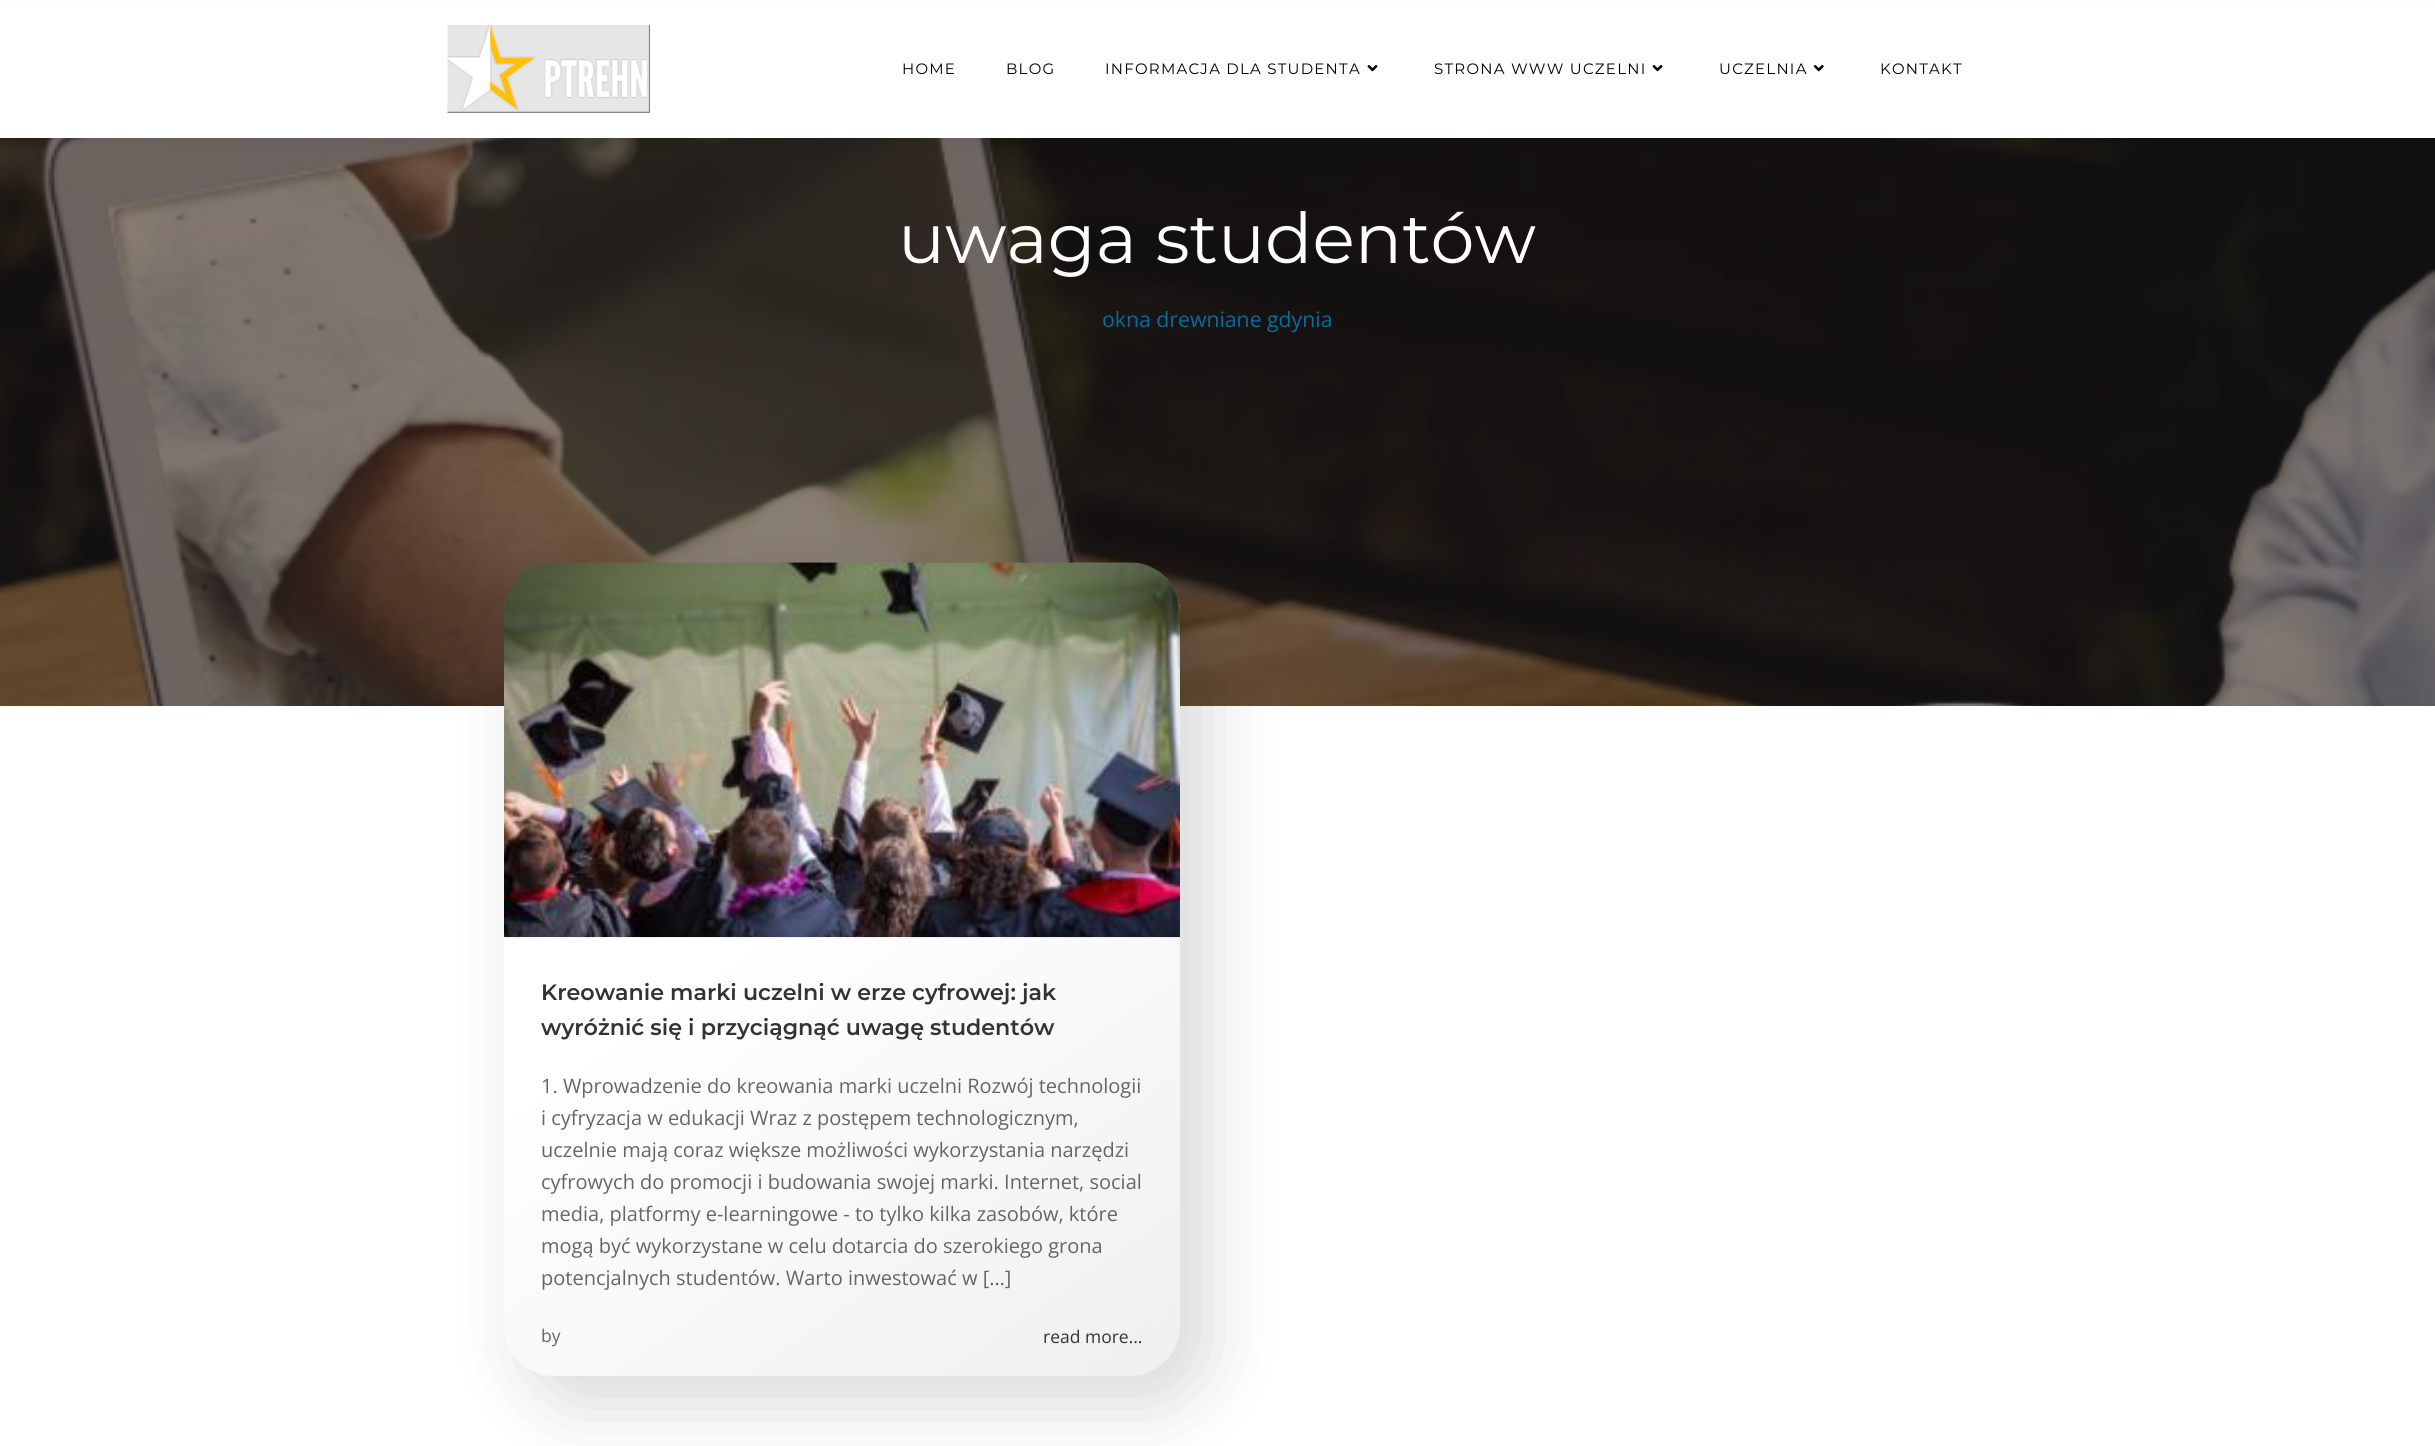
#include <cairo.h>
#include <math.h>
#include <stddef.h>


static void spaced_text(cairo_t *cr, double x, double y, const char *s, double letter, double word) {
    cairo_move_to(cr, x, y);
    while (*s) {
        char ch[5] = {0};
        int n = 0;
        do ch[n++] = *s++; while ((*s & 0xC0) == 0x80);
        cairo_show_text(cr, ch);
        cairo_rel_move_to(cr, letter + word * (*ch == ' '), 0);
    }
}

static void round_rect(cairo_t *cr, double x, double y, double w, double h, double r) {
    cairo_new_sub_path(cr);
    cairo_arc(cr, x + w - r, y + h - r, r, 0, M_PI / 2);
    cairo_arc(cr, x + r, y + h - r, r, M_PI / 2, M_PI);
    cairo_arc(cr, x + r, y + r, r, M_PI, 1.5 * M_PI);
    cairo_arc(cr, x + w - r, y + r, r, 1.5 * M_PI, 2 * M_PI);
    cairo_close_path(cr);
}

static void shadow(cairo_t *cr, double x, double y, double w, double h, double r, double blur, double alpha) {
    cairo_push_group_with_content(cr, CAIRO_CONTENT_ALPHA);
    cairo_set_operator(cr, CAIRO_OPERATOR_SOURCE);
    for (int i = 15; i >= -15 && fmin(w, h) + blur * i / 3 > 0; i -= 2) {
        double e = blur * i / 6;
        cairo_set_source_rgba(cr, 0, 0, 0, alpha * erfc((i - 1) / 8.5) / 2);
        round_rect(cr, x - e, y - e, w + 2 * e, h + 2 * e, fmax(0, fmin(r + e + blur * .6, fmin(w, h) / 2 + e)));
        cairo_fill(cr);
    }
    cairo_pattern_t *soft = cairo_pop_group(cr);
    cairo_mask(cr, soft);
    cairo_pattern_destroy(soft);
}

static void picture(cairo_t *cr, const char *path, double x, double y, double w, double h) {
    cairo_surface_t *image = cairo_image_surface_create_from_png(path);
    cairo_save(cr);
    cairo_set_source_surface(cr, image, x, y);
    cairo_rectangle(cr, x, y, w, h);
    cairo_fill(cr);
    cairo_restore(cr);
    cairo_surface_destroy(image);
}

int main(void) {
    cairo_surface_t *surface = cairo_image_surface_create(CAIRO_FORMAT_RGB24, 2435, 1446);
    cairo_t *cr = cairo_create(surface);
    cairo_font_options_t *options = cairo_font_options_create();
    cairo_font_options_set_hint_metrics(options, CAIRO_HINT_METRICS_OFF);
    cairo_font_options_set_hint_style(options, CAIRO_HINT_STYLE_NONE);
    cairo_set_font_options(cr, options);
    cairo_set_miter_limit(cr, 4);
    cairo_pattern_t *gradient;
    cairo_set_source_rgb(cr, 1, 1, 1);
    cairo_paint(cr);
    picture(cr, "img4.png", 0, 138, 2435, 568);
    cairo_set_source_rgb(cr, 0, 0, 0);
    shadow(cr, 0, 6, 2435, 138, 0, 6, 0.05);
    cairo_set_source_rgb(cr, 1, 1, 1);
    cairo_rectangle(cr, 0, 1, 2435, 137);
    cairo_fill(cr);
    picture(cr, "img1.png", 447, 25, 203, 88);
    cairo_select_font_face(cr, "Montserrat", CAIRO_FONT_SLANT_NORMAL, CAIRO_FONT_WEIGHT_NORMAL);
    cairo_set_font_size(cr, 15);
    cairo_set_source_rgb(cr, 0, 0, 0);
    spaced_text(cr, 902, 74, "HOME", 1.25, 0);
    spaced_text(cr, 1006, 74, "BLOG", 1.25, 0);
    spaced_text(cr, 1105, 74, "INFORMACJA DLA STUDENTA", 1.25, 0);
    picture(cr, "img2.png", 1367, 65, 11, 7);
    spaced_text(cr, 1434, 74, "STRONA WWW UCZELNI", 1.25, 0);
    picture(cr, "img2.png", 1652, 65, 11, 7);
    spaced_text(cr, 1719, 74, "UCZELNIA", 1.25, 0);
    picture(cr, "img3.png", 1813, 64, 11, 8);
    spaced_text(cr, 1880, 74, "KONTAKT", 1.25, 0);
    cairo_set_font_size(cr, 70);
    cairo_set_source_rgb(cr, 1, 1, 1);
    cairo_move_to(cr, 898, 263);
    cairo_show_text(cr, "uwaga studentów");
    cairo_select_font_face(cr, "Open Sans", CAIRO_FONT_SLANT_NORMAL, CAIRO_FONT_WEIGHT_NORMAL);
    cairo_set_font_size(cr, 21.25);
    cairo_set_source_rgb(cr, 0.008, 0.431, 0.624);
    cairo_move_to(cr, 1102, 327);
    cairo_show_text(cr, "okna drewniane gdynia");
    cairo_set_source_rgb(cr, 0, 0, 0);
    shadow(cr, 526, 585, 682, 819, 53, 37.5, 0.15);
    gradient = cairo_pattern_create_linear(539, 537, 1144, 1401);
    cairo_pattern_add_color_stop_rgba(gradient, 0.42, 1, 1, 1, 1);
    cairo_pattern_add_color_stop_rgba(gradient, 1, 0.937, 0.937, 0.937, 1);
    cairo_set_source(cr, gradient);
    cairo_pattern_destroy(gradient);
    round_rect(cr, 504, 563, 676, 813, 50);
    cairo_fill(cr);
    picture(cr, "img5.png", 504, 562, 676, 376);
    cairo_select_font_face(cr, "Montserrat SemiBold", CAIRO_FONT_SLANT_NORMAL, CAIRO_FONT_WEIGHT_NORMAL);
    cairo_set_font_size(cr, 22.2);
    cairo_set_source_rgb(cr, 0.2, 0.2, 0.2);
    cairo_move_to(cr, 541, 1000);
    cairo_show_text(cr, "Kreowanie marki uczelni w erze cyfrowej: jak");
    cairo_move_to(cr, 541, 1035);
    cairo_show_text(cr, "wyróżnić się i przyciągnąć uwagę studentów");
    cairo_select_font_face(cr, "Open Sans", CAIRO_FONT_SLANT_NORMAL, CAIRO_FONT_WEIGHT_NORMAL);
    cairo_set_font_size(cr, 20);
    cairo_set_source_rgb(cr, 0.4, 0.4, 0.4);
    cairo_move_to(cr, 541, 1093);
    cairo_show_text(cr, "1. Wprowadzenie do kreowania marki uczelni Rozwój technologii");
    cairo_move_to(cr, 541, 1125);
    cairo_show_text(cr, "i cyfryzacja w edukacji Wraz z postępem technologicznym,");
    cairo_move_to(cr, 541, 1157);
    cairo_show_text(cr, "uczelnie mają coraz większe możliwości wykorzystania narzędzi");
    cairo_move_to(cr, 541, 1189);
    cairo_show_text(cr, "cyfrowych do promocji i budowania swojej marki. Internet, social");
    cairo_move_to(cr, 541, 1221);
    cairo_show_text(cr, "media, platformy e-learningowe - to tylko kilka zasobów, które");
    cairo_move_to(cr, 541, 1253);
    cairo_show_text(cr, "mogą być wykorzystane w celu dotarcia do szerokiego grona");
    cairo_move_to(cr, 541, 1285);
    cairo_show_text(cr, "potencjalnych studentów. Warto inwestować w […]");
    cairo_set_font_size(cr, 17.5);
    cairo_move_to(cr, 541, 1342);
    cairo_show_text(cr, "by");
    cairo_set_source_rgb(cr, 0.2, 0.2, 0.2);
    cairo_move_to(cr, 1043, 1343);
    cairo_show_text(cr, "read more...");
    cairo_surface_write_to_png(surface, "page.png");
    cairo_font_options_destroy(options);
    cairo_destroy(cr);
    cairo_surface_destroy(surface);
    return 0;
}
